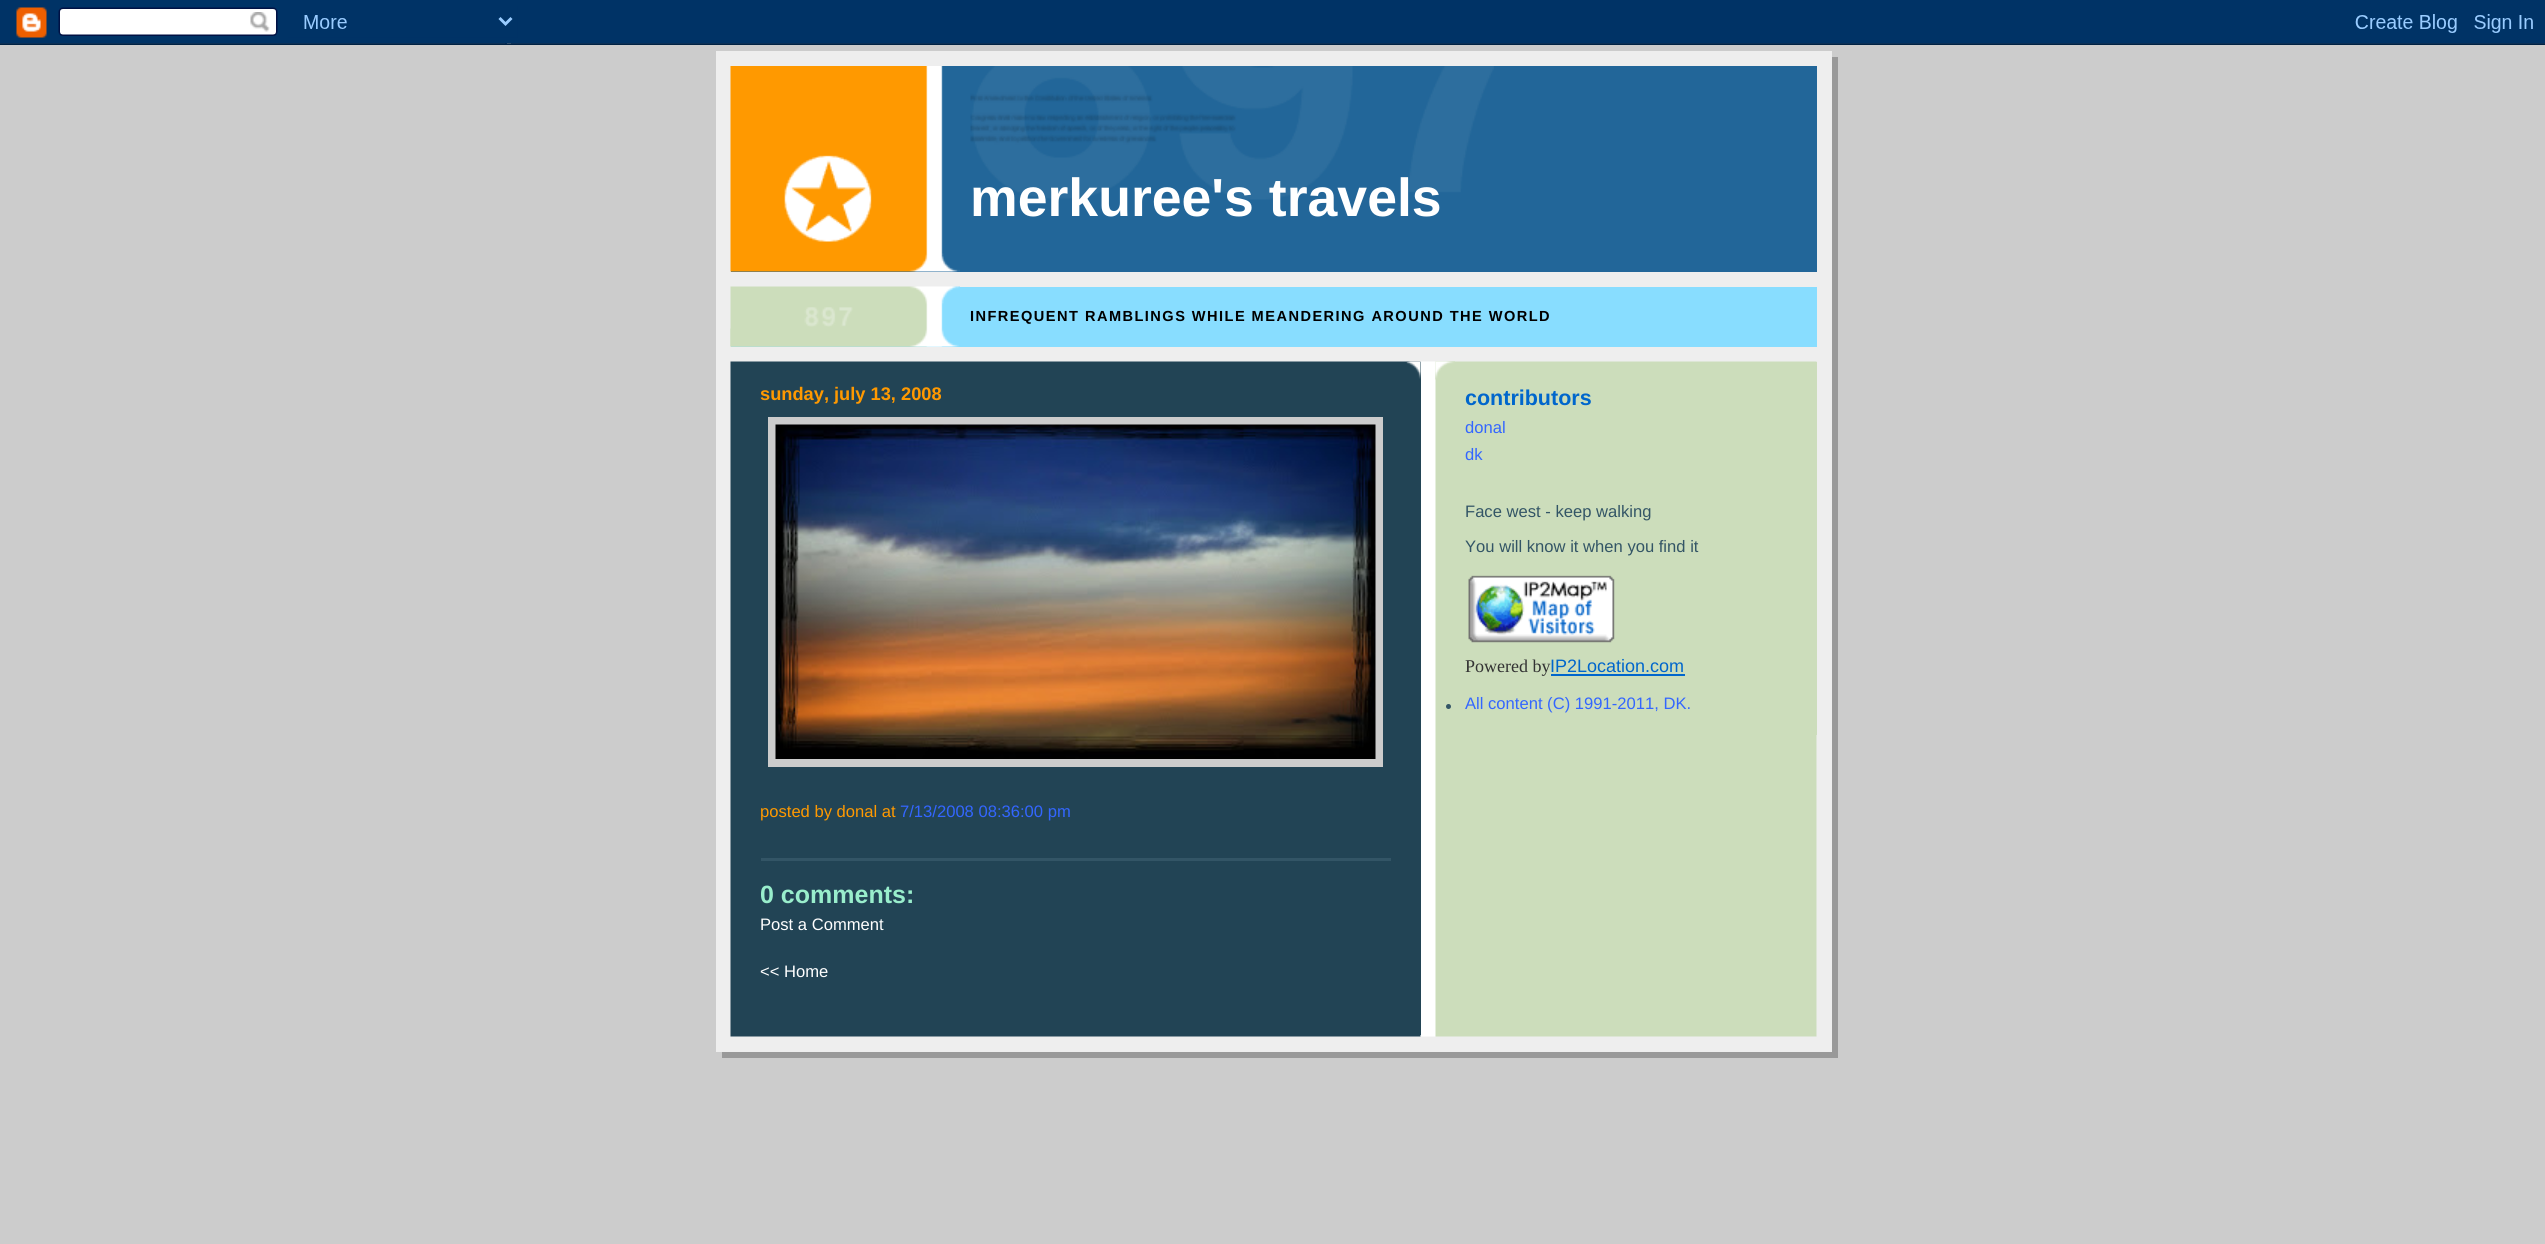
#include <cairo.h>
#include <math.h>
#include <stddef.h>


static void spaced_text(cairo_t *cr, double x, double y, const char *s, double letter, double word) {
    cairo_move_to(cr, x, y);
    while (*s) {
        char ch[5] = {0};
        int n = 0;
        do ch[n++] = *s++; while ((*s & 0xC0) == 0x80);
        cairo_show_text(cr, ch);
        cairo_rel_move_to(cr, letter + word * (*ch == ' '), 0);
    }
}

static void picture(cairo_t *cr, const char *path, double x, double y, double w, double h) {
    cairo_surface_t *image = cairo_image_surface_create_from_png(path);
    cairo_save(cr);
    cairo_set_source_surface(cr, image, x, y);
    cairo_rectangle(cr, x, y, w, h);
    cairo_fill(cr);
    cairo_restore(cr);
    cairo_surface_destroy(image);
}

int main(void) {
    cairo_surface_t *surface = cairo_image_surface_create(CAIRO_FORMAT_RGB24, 2545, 1244);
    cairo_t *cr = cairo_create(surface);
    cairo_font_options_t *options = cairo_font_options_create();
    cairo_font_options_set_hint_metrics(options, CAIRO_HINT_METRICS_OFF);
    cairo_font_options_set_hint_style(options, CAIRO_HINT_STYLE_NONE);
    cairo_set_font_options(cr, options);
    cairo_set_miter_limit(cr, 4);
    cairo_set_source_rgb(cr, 0.8, 0.8, 0.8);
    cairo_paint(cr);
    picture(cr, "img1.png", 0, 0, 2545, 45);
    cairo_set_source_rgb(cr, 0.6, 0.6, 0.6);
    cairo_rectangle(cr, 722, 57, 1116, 1001);
    cairo_fill(cr);
    cairo_set_source_rgb(cr, 0.933, 0.933, 0.933);
    cairo_rectangle(cr, 716, 51, 1116, 1001);
    cairo_fill(cr);
    cairo_set_source_rgb(cr, 0.133, 0.4, 0.6);
    cairo_rectangle(cr, 731, 66, 1086, 206);
    cairo_fill(cr);
    picture(cr, "img2.png", 730, 66, 230, 206);
    picture(cr, "img3.png", 970, 66, 524, 134);
    cairo_select_font_face(cr, "Liberation Sans", CAIRO_FONT_SLANT_NORMAL, CAIRO_FONT_WEIGHT_BOLD);
    cairo_set_font_size(cr, 53.6);
    cairo_set_source_rgb(cr, 1, 1, 1);
    cairo_move_to(cr, 970, 216);
    cairo_show_text(cr, "merkuree's travels");
    cairo_set_source_rgb(cr, 0.533, 0.867, 1);
    cairo_rectangle(cr, 731, 287, 1086, 60);
    cairo_fill(cr);
    picture(cr, "img4.png", 730, 286, 230, 61);
    picture(cr, "img5.png", 730, 328, 229, 19);
    picture(cr, "img6.png", 804, 307, 49, 20);
    cairo_set_font_size(cr, 14.6);
    cairo_set_source_rgb(cr, 0, 0, 0);
    spaced_text(cr, 970, 321, "INFREQUENT RAMBLINGS WHILE MEANDERING AROUND THE WORLD", 1.45, 0);
    picture(cr, "img7.png", 730, 361, 1087, 676);
    cairo_set_source_rgb(cr, 0.133, 0.267, 0.333);
    cairo_rectangle(cr, 1420, 362, 1, 673);
    cairo_fill(cr);
    picture(cr, "img8.png", 1406, 361, 15, 18);
    cairo_set_font_size(cr, 18.25);
    cairo_set_source_rgb(cr, 1, 0.6, 0);
    cairo_move_to(cr, 760, 400);
    cairo_show_text(cr, "sunday, july 13, 2008");
    cairo_rectangle(cr, 772, 421, 607, 342);
    cairo_set_source_rgb(cr, 0.8, 0.8, 0.8);
    cairo_set_line_width(cr, 8);
    cairo_stroke(cr);
    picture(cr, "img9.png", 775, 424, 601, 335);
    cairo_select_font_face(cr, "Liberation Sans", CAIRO_FONT_SLANT_NORMAL, CAIRO_FONT_WEIGHT_NORMAL);
    cairo_set_font_size(cr, 16.6);
    cairo_set_source_rgb(cr, 1, 0.6, 0);
    cairo_move_to(cr, 760, 817);
    cairo_show_text(cr, "posted by donal at");
    cairo_set_source_rgb(cr, 0.2, 0.4, 1);
    cairo_move_to(cr, 900, 817);
    cairo_show_text(cr, "7/13/2008 08:36:00 pm");
    cairo_set_source_rgb(cr, 0.2, 0.333, 0.4);
    cairo_rectangle(cr, 761, 858, 630, 3);
    cairo_fill(cr);
    cairo_select_font_face(cr, "Liberation Sans", CAIRO_FONT_SLANT_NORMAL, CAIRO_FONT_WEIGHT_BOLD);
    cairo_set_font_size(cr, 25);
    cairo_set_source_rgb(cr, 0.6, 0.933, 0.8);
    cairo_move_to(cr, 760, 903);
    cairo_show_text(cr, "0 comments:");
    cairo_select_font_face(cr, "Liberation Sans", CAIRO_FONT_SLANT_NORMAL, CAIRO_FONT_WEIGHT_NORMAL);
    cairo_set_font_size(cr, 16.6);
    cairo_set_source_rgb(cr, 1, 1, 1);
    cairo_move_to(cr, 760, 930);
    cairo_show_text(cr, "Post a Comment");
    cairo_move_to(cr, 760, 977);
    cairo_show_text(cr, "<< Home");
    cairo_set_source_rgb(cr, 0.8, 0.867, 0.733);
    cairo_rectangle(cr, 1816, 362, 1, 373);
    cairo_fill(cr);
    picture(cr, "img10.png", 1435, 361, 20, 19);
    cairo_select_font_face(cr, "Liberation Sans", CAIRO_FONT_SLANT_NORMAL, CAIRO_FONT_WEIGHT_BOLD);
    cairo_set_font_size(cr, 21.5);
    cairo_set_source_rgb(cr, 0, 0.4, 0.8);
    cairo_move_to(cr, 1465, 405);
    cairo_show_text(cr, "contributors");
    cairo_select_font_face(cr, "Liberation Sans", CAIRO_FONT_SLANT_NORMAL, CAIRO_FONT_WEIGHT_NORMAL);
    cairo_set_font_size(cr, 16.6);
    cairo_set_source_rgb(cr, 0.2, 0.4, 1);
    cairo_move_to(cr, 1465, 433);
    cairo_show_text(cr, "donal");
    cairo_move_to(cr, 1465, 460);
    cairo_show_text(cr, "dk");
    cairo_set_source_rgb(cr, 0.2, 0.333, 0.4);
    cairo_move_to(cr, 1465, 517);
    cairo_show_text(cr, "Face west - keep walking");
    cairo_move_to(cr, 1465, 552);
    cairo_show_text(cr, "You will know it when you find it");
    picture(cr, "img11.png", 1468, 575, 147, 68);
    cairo_select_font_face(cr, "Liberation Serif", CAIRO_FONT_SLANT_NORMAL, CAIRO_FONT_WEIGHT_NORMAL);
    cairo_set_font_size(cr, 18);
    cairo_set_source_rgb(cr, 0.2, 0.2, 0.2);
    cairo_move_to(cr, 1465, 672);
    cairo_show_text(cr, "Powered by");
    cairo_select_font_face(cr, "Liberation Sans", CAIRO_FONT_SLANT_NORMAL, CAIRO_FONT_WEIGHT_NORMAL);
    cairo_set_source_rgb(cr, 0, 0.4, 0.8);
    cairo_move_to(cr, 1550, 672);
    cairo_show_text(cr, "IP2Location.com");
    cairo_rectangle(cr, 1551, 674, 134, 2);
    cairo_fill(cr);
    cairo_set_source_rgb(cr, 0.2, 0.333, 0.4);
    cairo_arc(cr, 1448.5, 706.5, 2.5, 0, 2 * M_PI);
    cairo_fill(cr);
    cairo_set_font_size(cr, 16.6);
    cairo_set_source_rgb(cr, 0.2, 0.4, 1);
    cairo_move_to(cr, 1465, 709);
    cairo_show_text(cr, "All content (C) 1991-2011, DK.");
    cairo_surface_write_to_png(surface, "page.png");
    cairo_font_options_destroy(options);
    cairo_destroy(cr);
    cairo_surface_destroy(surface);
    return 0;
}
